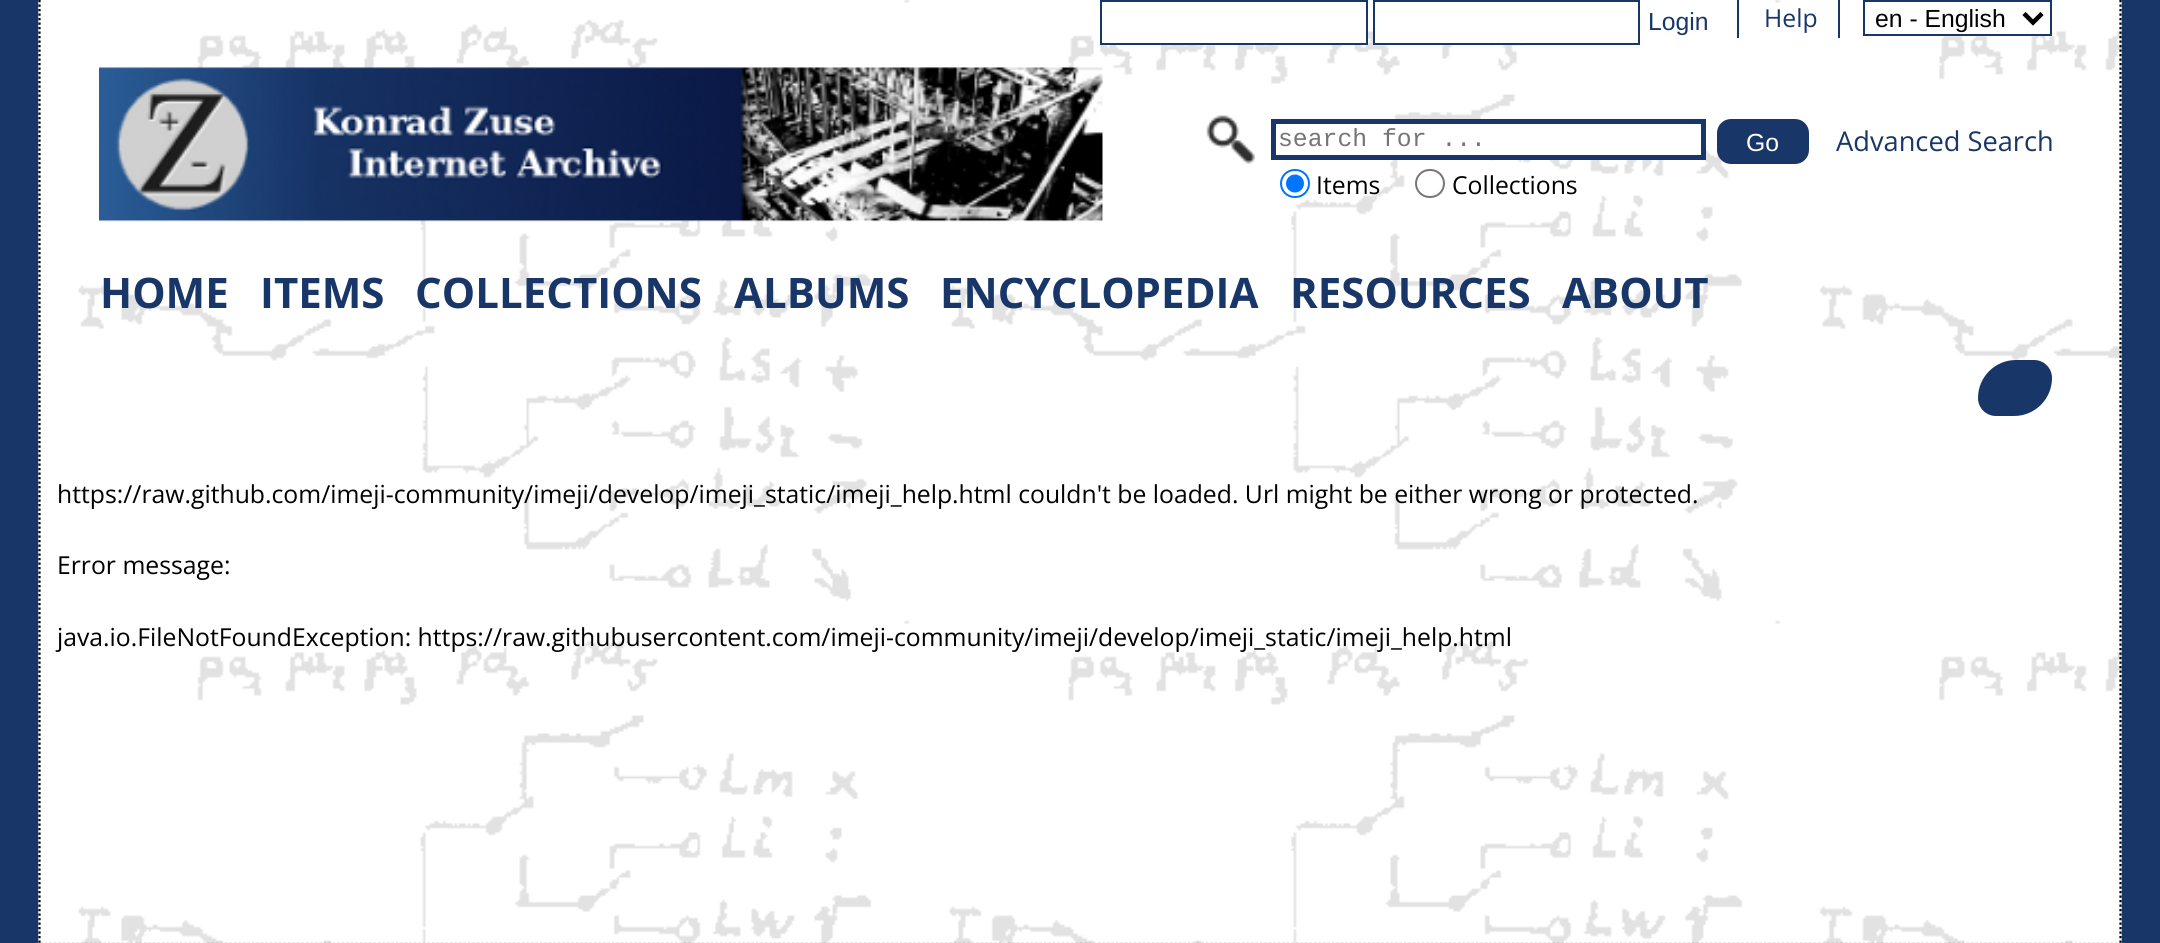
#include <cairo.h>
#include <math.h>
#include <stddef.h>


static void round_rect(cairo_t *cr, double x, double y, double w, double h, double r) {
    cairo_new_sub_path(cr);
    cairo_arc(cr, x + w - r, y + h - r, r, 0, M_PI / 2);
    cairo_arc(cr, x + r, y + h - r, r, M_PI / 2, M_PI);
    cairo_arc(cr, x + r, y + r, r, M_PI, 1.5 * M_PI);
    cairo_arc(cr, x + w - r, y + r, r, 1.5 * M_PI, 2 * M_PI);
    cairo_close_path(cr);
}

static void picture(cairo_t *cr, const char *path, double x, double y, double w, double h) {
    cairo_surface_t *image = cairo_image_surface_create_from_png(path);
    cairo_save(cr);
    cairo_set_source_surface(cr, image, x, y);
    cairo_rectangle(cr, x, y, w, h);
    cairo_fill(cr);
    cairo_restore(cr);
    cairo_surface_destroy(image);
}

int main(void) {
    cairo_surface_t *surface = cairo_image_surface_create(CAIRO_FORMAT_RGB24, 2160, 943);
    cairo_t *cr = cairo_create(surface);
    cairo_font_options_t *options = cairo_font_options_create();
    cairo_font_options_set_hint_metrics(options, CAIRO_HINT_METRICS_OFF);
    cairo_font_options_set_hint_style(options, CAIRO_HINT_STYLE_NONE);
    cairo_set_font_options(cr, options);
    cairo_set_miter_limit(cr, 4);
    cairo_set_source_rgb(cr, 0.094, 0.212, 0.408);
    cairo_paint(cr);
    picture(cr, "img1.png", 38, 0, 2084, 943);
    cairo_new_path(cr);
    cairo_move_to(cr, 2120.5, 0);
    cairo_line_to(cr, 2120.5, 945);
    cairo_set_source_rgb(cr, 0, 0, 0);
    cairo_set_line_width(cr, 2.2);
    cairo_set_dash(cr, (double[]){2.25, 2.25}, 2, 0);
    cairo_stroke(cr);
    cairo_new_path(cr);
    cairo_move_to(cr, 39.5, 0);
    cairo_line_to(cr, 39.5, 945);
    cairo_stroke(cr);
    cairo_set_source_rgb(cr, 1, 1, 1);
    cairo_rectangle(cr, 1102, 24, 264, 19);
    cairo_fill(cr);
    cairo_rectangle(cr, 1101, 1, 266, 43);
    cairo_set_source_rgb(cr, 0.094, 0.212, 0.408);
    cairo_set_line_width(cr, 2);
    cairo_set_dash(cr, NULL, 0, 0);
    cairo_stroke(cr);
    cairo_set_source_rgb(cr, 1, 1, 1);
    cairo_rectangle(cr, 1375, 19, 154, 24);
    cairo_fill(cr);
    cairo_rectangle(cr, 1374, 1, 265, 43);
    cairo_set_source_rgb(cr, 0.094, 0.212, 0.408);
    cairo_stroke(cr);
    cairo_select_font_face(cr, "Liberation Sans", CAIRO_FONT_SLANT_NORMAL, CAIRO_FONT_WEIGHT_NORMAL);
    cairo_set_font_size(cr, 24.75);
    cairo_move_to(cr, 1648, 30);
    cairo_show_text(cr, "Login");
    cairo_rectangle(cr, 1737, 0, 2, 38);
    cairo_fill(cr);
    cairo_select_font_face(cr, "Open Sans", CAIRO_FONT_SLANT_NORMAL, CAIRO_FONT_WEIGHT_NORMAL);
    cairo_move_to(cr, 1764, 27);
    cairo_show_text(cr, "Help");
    cairo_rectangle(cr, 1838, 0, 2, 38);
    cairo_fill(cr);
    cairo_set_source_rgb(cr, 1, 1, 1);
    cairo_rectangle(cr, 2035, 31, 11, 3);
    cairo_fill(cr);
    cairo_rectangle(cr, 1864, 1, 187, 34);
    cairo_set_source_rgb(cr, 0.094, 0.212, 0.408);
    cairo_stroke(cr);
    cairo_new_path(cr);
    cairo_move_to(cr, 2024, 13.5);
    cairo_line_to(cr, 2033, 22.5);
    cairo_line_to(cr, 2042, 13.5);
    cairo_set_source_rgb(cr, 0, 0, 0);
    cairo_set_line_width(cr, 4.5);
    cairo_stroke(cr);
    cairo_select_font_face(cr, "Liberation Sans", CAIRO_FONT_SLANT_NORMAL, CAIRO_FONT_WEIGHT_NORMAL);
    cairo_move_to(cr, 1875, 27);
    cairo_show_text(cr, "en - English");
    picture(cr, "img2.png", 99, 67, 1004, 155);
    picture(cr, "img3.png", 1206, 115, 49, 49);
    cairo_set_source_rgb(cr, 1, 1, 1);
    cairo_rectangle(cr, 1390, 124, 274, 31);
    cairo_fill(cr);
    cairo_rectangle(cr, 1273.5, 121.5, 430, 36);
    cairo_set_source_rgb(cr, 0.094, 0.212, 0.408);
    cairo_set_line_width(cr, 5);
    cairo_stroke(cr);
    cairo_select_font_face(cr, "Liberation Mono", CAIRO_FONT_SLANT_NORMAL, CAIRO_FONT_WEIGHT_NORMAL);
    cairo_set_source_rgb(cr, 0.459, 0.459, 0.459);
    cairo_move_to(cr, 1278, 146);
    cairo_show_text(cr, "search for ...");
    round_rect(cr, 1281, 170, 28, 27, 13.5);
    cairo_set_source_rgb(cr, 0, 0.459, 1);
    cairo_set_line_width(cr, 2);
    cairo_stroke(cr);
    cairo_arc(cr, 1295, 183.5, 9, 0, 2 * M_PI);
    cairo_fill(cr);
    cairo_select_font_face(cr, "Open Sans", CAIRO_FONT_SLANT_NORMAL, CAIRO_FONT_WEIGHT_NORMAL);
    cairo_set_source_rgb(cr, 0, 0, 0);
    cairo_move_to(cr, 1316, 194);
    cairo_show_text(cr, "Items");
    round_rect(cr, 1416, 170, 28, 27, 13.5);
    cairo_set_source_rgb(cr, 0.463, 0.463, 0.463);
    cairo_stroke(cr);
    cairo_set_source_rgb(cr, 0, 0, 0);
    cairo_move_to(cr, 1452, 194);
    cairo_show_text(cr, "Collections");
    cairo_set_source_rgb(cr, 0.094, 0.212, 0.408);
    round_rect(cr, 1719.5, 121.5, 87, 40, 11.5);
    cairo_fill_preserve(cr);
    cairo_set_line_width(cr, 5);
    cairo_stroke(cr);
    cairo_select_font_face(cr, "Liberation Sans", CAIRO_FONT_SLANT_NORMAL, CAIRO_FONT_WEIGHT_NORMAL);
    cairo_set_source_rgb(cr, 1, 1, 1);
    cairo_move_to(cr, 1746, 151);
    cairo_show_text(cr, "Go");
    cairo_select_font_face(cr, "Open Sans", CAIRO_FONT_SLANT_NORMAL, CAIRO_FONT_WEIGHT_NORMAL);
    cairo_set_font_size(cr, 27.25);
    cairo_set_source_rgb(cr, 0.094, 0.212, 0.408);
    cairo_move_to(cr, 1836, 151);
    cairo_show_text(cr, "Advanced Search");
    cairo_select_font_face(cr, "Open Sans", CAIRO_FONT_SLANT_NORMAL, CAIRO_FONT_WEIGHT_BOLD);
    cairo_set_font_size(cr, 42);
    cairo_move_to(cr, 100, 308);
    cairo_show_text(cr, "HOME");
    cairo_move_to(cr, 260, 308);
    cairo_show_text(cr, "ITEMS");
    cairo_move_to(cr, 415, 308);
    cairo_show_text(cr, "COLLECTIONS");
    cairo_move_to(cr, 734, 308);
    cairo_show_text(cr, "ALBUMS");
    cairo_move_to(cr, 940, 308);
    cairo_show_text(cr, "ENCYCLOPEDIA");
    cairo_move_to(cr, 1290, 308);
    cairo_show_text(cr, "RESOURCES");
    cairo_move_to(cr, 1562, 308);
    cairo_show_text(cr, "ABOUT");
    cairo_new_path(cr);
    cairo_move_to(cr, 2016, 360);
    cairo_line_to(cr, 2034, 360);
    cairo_curve_to(cr, 2044, 360, 2052, 368, 2052, 378);
    cairo_curve_to(cr, 2052, 399, 2035, 416, 2014, 416);
    cairo_line_to(cr, 1996, 416);
    cairo_curve_to(cr, 1986, 416, 1978, 408, 1978, 398);
    cairo_curve_to(cr, 1978, 377, 1995, 360, 2016, 360);
    cairo_close_path(cr);
    cairo_fill(cr);
    cairo_select_font_face(cr, "Open Sans", CAIRO_FONT_SLANT_NORMAL, CAIRO_FONT_WEIGHT_NORMAL);
    cairo_set_font_size(cr, 24.75);
    cairo_set_source_rgb(cr, 0, 0, 0);
    cairo_move_to(cr, 57, 503);
    cairo_show_text(cr, "https://raw.github.com/imeji-community/imeji/develop/imeji_static/imeji_help.html couldn't be loaded. Url might be either wrong or protected.");
    cairo_move_to(cr, 57, 574);
    cairo_show_text(cr, "Error message:");
    cairo_move_to(cr, 57, 646);
    cairo_show_text(cr, "java.io.FileNotFoundException: https://raw.githubusercontent.com/imeji-community/imeji/develop/imeji_static/imeji_help.html");
    cairo_new_path(cr);
    cairo_move_to(cr, 40.5, 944);
    cairo_line_to(cr, 2119.5, 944);
    cairo_set_line_width(cr, 2.2);
    cairo_set_dash(cr, (double[]){2.25, 2.25}, 2, 0);
    cairo_stroke(cr);
    cairo_surface_write_to_png(surface, "page.png");
    cairo_font_options_destroy(options);
    cairo_destroy(cr);
    cairo_surface_destroy(surface);
    return 0;
}
